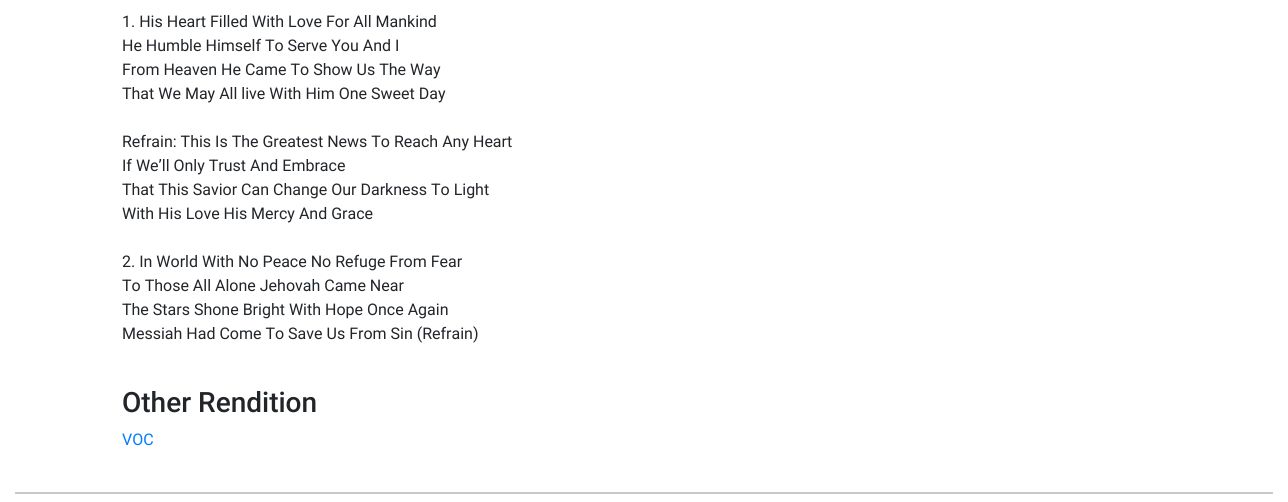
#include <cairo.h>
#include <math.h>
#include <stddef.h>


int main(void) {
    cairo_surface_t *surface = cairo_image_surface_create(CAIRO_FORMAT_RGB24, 1288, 502);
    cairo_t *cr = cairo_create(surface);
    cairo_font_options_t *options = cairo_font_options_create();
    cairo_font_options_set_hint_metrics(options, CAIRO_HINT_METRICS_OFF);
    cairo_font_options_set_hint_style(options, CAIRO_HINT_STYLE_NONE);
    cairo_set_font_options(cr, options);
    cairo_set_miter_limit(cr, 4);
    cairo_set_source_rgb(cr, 1, 1, 1);
    cairo_paint(cr);
    cairo_select_font_face(cr, "Roboto", CAIRO_FONT_SLANT_NORMAL, CAIRO_FONT_WEIGHT_NORMAL);
    cairo_set_font_size(cr, 16);
    cairo_set_source_rgb(cr, 0.129, 0.145, 0.161);
    cairo_move_to(cr, 122, 27);
    cairo_show_text(cr, "1. His Heart Filled With Love For All Mankind");
    cairo_move_to(cr, 122, 51);
    cairo_show_text(cr, "He Humble Himself To Serve You And I");
    cairo_move_to(cr, 122, 75);
    cairo_show_text(cr, "From Heaven He Came To Show Us The Way");
    cairo_move_to(cr, 122, 99);
    cairo_show_text(cr, "That We May All live With Him One Sweet Day");
    cairo_move_to(cr, 122, 147);
    cairo_show_text(cr, "Refrain: This Is The Greatest News To Reach Any Heart");
    cairo_move_to(cr, 122, 171);
    cairo_show_text(cr, "If We’ll Only Trust And Embrace");
    cairo_move_to(cr, 122, 195);
    cairo_show_text(cr, "That This Savior Can Change Our Darkness To Light");
    cairo_move_to(cr, 122, 219);
    cairo_show_text(cr, "With His Love His Mercy And Grace");
    cairo_move_to(cr, 122, 267);
    cairo_show_text(cr, "2. In World With No Peace No Refuge From Fear");
    cairo_move_to(cr, 122, 291);
    cairo_show_text(cr, "To Those All Alone Jehovah Came Near");
    cairo_move_to(cr, 122, 315);
    cairo_show_text(cr, "The Stars Shone Bright With Hope Once Again");
    cairo_move_to(cr, 122, 339);
    cairo_show_text(cr, "Messiah Had Come To Save Us From Sin (Refrain)");
    cairo_select_font_face(cr, "Roboto Medium", CAIRO_FONT_SLANT_NORMAL, CAIRO_FONT_WEIGHT_NORMAL);
    cairo_set_font_size(cr, 28);
    cairo_move_to(cr, 122, 412);
    cairo_show_text(cr, "Other Rendition");
    cairo_select_font_face(cr, "Roboto", CAIRO_FONT_SLANT_NORMAL, CAIRO_FONT_WEIGHT_NORMAL);
    cairo_set_font_size(cr, 16);
    cairo_set_source_rgb(cr, 0, 0.482, 1);
    cairo_move_to(cr, 122, 445);
    cairo_show_text(cr, "VOC");
    cairo_set_source_rgb(cr, 0.784, 0.788, 0.792);
    cairo_rectangle(cr, 15, 492, 1258, 2);
    cairo_fill(cr);
    cairo_surface_write_to_png(surface, "page.png");
    cairo_font_options_destroy(options);
    cairo_destroy(cr);
    cairo_surface_destroy(surface);
    return 0;
}
